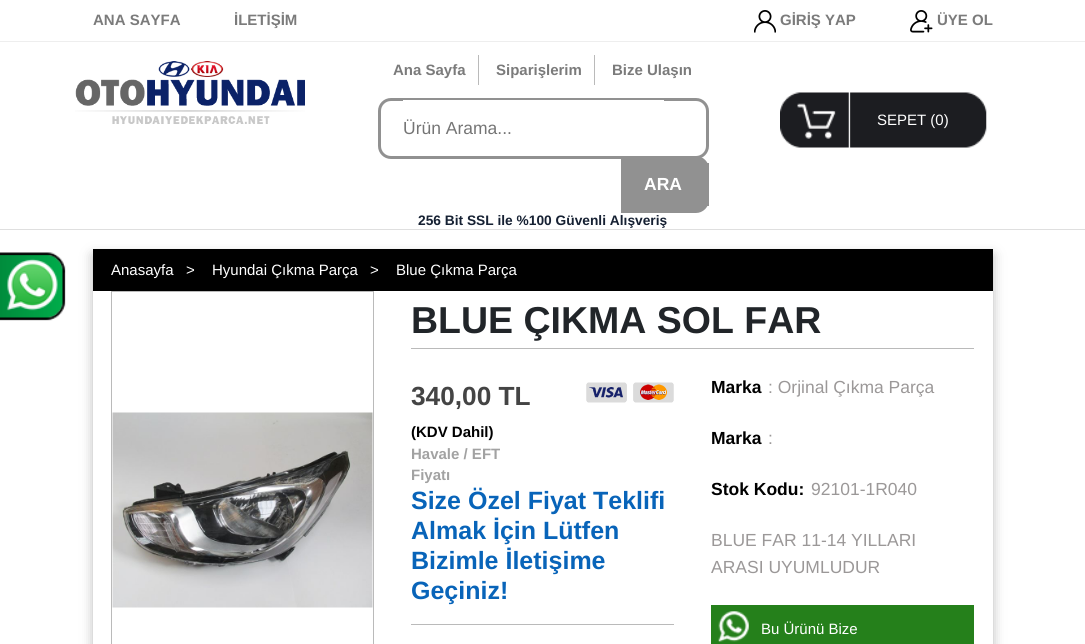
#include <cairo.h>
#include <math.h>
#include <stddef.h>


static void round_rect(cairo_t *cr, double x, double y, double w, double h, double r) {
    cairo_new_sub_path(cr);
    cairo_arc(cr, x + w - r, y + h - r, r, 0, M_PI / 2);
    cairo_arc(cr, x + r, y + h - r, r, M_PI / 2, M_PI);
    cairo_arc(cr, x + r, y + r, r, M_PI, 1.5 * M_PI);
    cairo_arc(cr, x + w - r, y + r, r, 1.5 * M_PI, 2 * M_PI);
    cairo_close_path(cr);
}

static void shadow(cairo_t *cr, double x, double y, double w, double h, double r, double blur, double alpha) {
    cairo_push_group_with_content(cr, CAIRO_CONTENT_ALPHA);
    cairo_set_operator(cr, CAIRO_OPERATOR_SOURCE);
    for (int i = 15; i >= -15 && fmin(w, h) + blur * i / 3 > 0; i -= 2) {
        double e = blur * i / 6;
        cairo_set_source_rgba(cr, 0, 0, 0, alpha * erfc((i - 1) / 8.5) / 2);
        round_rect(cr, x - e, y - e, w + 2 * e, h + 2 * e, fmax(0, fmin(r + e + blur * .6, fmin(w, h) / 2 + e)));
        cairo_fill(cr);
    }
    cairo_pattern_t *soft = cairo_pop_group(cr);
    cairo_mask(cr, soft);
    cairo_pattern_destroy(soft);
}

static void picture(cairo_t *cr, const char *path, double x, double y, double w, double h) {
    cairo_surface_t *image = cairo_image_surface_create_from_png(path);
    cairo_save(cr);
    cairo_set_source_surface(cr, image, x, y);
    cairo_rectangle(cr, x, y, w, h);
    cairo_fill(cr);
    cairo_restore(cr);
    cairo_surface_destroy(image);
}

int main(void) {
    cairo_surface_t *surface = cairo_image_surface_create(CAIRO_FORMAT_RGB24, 1085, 644);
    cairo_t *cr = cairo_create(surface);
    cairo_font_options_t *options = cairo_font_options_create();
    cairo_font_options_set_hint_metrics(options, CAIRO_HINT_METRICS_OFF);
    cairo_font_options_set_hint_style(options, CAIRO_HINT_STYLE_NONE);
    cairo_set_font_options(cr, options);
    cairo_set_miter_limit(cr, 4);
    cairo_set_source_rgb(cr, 1, 1, 1);
    cairo_paint(cr);
    cairo_set_source_rgb(cr, 0.933, 0.933, 0.933);
    cairo_rectangle(cr, 0, 41, 1085, 1);
    cairo_fill(cr);
    cairo_select_font_face(cr, "Liberation Sans", CAIRO_FONT_SLANT_NORMAL, CAIRO_FONT_WEIGHT_BOLD);
    cairo_set_font_size(cr, 15);
    cairo_set_source_rgb(cr, 0.482, 0.482, 0.482);
    cairo_move_to(cr, 93, 25);
    cairo_show_text(cr, "ANA SAYFA");
    cairo_move_to(cr, 234, 25);
    cairo_show_text(cr, "İLETİŞİM");
    picture(cr, "img1.png", 754, 10, 22, 23);
    cairo_move_to(cr, 780, 25);
    cairo_show_text(cr, "GİRİŞ YAP");
    picture(cr, "img2.png", 910, 10, 23, 23);
    cairo_move_to(cr, 937, 25);
    cairo_show_text(cr, "ÜYE OL");
    picture(cr, "img3.png", 75, 61, 230, 63);
    cairo_set_source_rgb(cr, 0.729, 0.729, 0.729);
    cairo_rectangle(cr, 478, 55, 1, 30);
    cairo_fill(cr);
    cairo_set_source_rgb(cr, 0.482, 0.482, 0.482);
    cairo_move_to(cr, 393, 75);
    cairo_show_text(cr, "Ana Sayfa");
    cairo_set_source_rgb(cr, 0.729, 0.729, 0.729);
    cairo_rectangle(cr, 594, 55, 1, 30);
    cairo_fill(cr);
    cairo_set_source_rgb(cr, 0.482, 0.482, 0.482);
    cairo_move_to(cr, 496, 75);
    cairo_show_text(cr, "Siparişlerim");
    cairo_move_to(cr, 612, 75);
    cairo_show_text(cr, "Bize Ulaşın");
    round_rect(cr, 379.5, 99.5, 328, 58, 11.5);
    cairo_set_source_rgb(cr, 0.569, 0.569, 0.569);
    cairo_set_line_width(cr, 3);
    cairo_stroke(cr);
    cairo_set_source_rgb(cr, 1, 1, 1);
    cairo_rectangle(cr, 403, 100, 261, 1);
    cairo_fill(cr);
    cairo_select_font_face(cr, "Liberation Sans", CAIRO_FONT_SLANT_NORMAL, CAIRO_FONT_WEIGHT_NORMAL);
    cairo_set_font_size(cr, 17.5);
    cairo_set_source_rgb(cr, 0.459, 0.459, 0.459);
    cairo_move_to(cr, 403, 134);
    cairo_show_text(cr, "Ürün Arama...");
    cairo_set_source_rgb(cr, 0.569, 0.569, 0.569);
    cairo_new_path(cr);
    cairo_move_to(cr, 621, 156);
    cairo_line_to(cr, 696, 156);
    cairo_curve_to(cr, 703, 156, 709, 162, 709, 169);
    cairo_line_to(cr, 709, 200);
    cairo_curve_to(cr, 709, 207, 703, 213, 696, 213);
    cairo_line_to(cr, 621, 213);
    cairo_close_path(cr);
    cairo_fill(cr);
    cairo_rectangle(cr, 707, 163, 2, 43);
    cairo_fill(cr);
    cairo_select_font_face(cr, "Liberation Sans", CAIRO_FONT_SLANT_NORMAL, CAIRO_FONT_WEIGHT_BOLD);
    cairo_set_source_rgb(cr, 1, 1, 1);
    cairo_move_to(cr, 644, 190);
    cairo_show_text(cr, "ARA");
    cairo_set_font_size(cr, 13.75);
    cairo_set_source_rgb(cr, 0.086, 0.129, 0.2);
    cairo_move_to(cr, 418, 225);
    cairo_show_text(cr, "256 Bit SSL ile %100 Güvenli Alışveriş");
    picture(cr, "img4.png", 780, 92, 207, 56);
    cairo_select_font_face(cr, "Liberation Sans", CAIRO_FONT_SLANT_NORMAL, CAIRO_FONT_WEIGHT_NORMAL);
    cairo_set_font_size(cr, 15);
    cairo_set_source_rgb(cr, 1, 1, 1);
    cairo_move_to(cr, 877, 125);
    cairo_show_text(cr, "SEPET (0)");
    cairo_set_source_rgb(cr, 0.875, 0.875, 0.875);
    cairo_rectangle(cr, 0, 229, 1085, 1);
    cairo_fill(cr);
    picture(cr, "img5.png", 0, 252, 66, 69);
    cairo_set_source_rgb(cr, 0.729, 0.729, 0.729);
    shadow(cr, 93, 255, 900, 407, 0, 6, 1);
    cairo_set_source_rgb(cr, 1, 1, 1);
    cairo_rectangle(cr, 93, 291, 900, 353);
    cairo_fill(cr);
    cairo_set_source_rgb(cr, 0, 0, 0);
    cairo_rectangle(cr, 93, 249, 900, 42);
    cairo_fill(cr);
    cairo_set_source_rgb(cr, 1, 1, 1);
    cairo_move_to(cr, 111, 275);
    cairo_show_text(cr, "Anasayfa");
    cairo_move_to(cr, 186, 275);
    cairo_show_text(cr, ">");
    cairo_move_to(cr, 212, 275);
    cairo_show_text(cr, "Hyundai Çıkma Parça");
    cairo_move_to(cr, 370, 275);
    cairo_show_text(cr, ">");
    cairo_move_to(cr, 396, 275);
    cairo_show_text(cr, "Blue Çıkma Parça");
    cairo_rectangle(cr, 111.5, 291.5, 262, 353);
    cairo_set_source_rgb(cr, 0.729, 0.729, 0.729);
    cairo_set_line_width(cr, 1);
    cairo_stroke(cr);
    picture(cr, "img6.png", 112, 412, 261, 196);
    cairo_rectangle(cr, 411, 348, 563, 1);
    cairo_fill(cr);
    cairo_select_font_face(cr, "Liberation Sans", CAIRO_FONT_SLANT_NORMAL, CAIRO_FONT_WEIGHT_BOLD);
    cairo_set_font_size(cr, 37.5);
    cairo_set_source_rgb(cr, 0.129, 0.145, 0.161);
    cairo_move_to(cr, 411, 333);
    cairo_show_text(cr, "BLUE ÇIKMA SOL FAR");
    cairo_set_font_size(cr, 26.25);
    cairo_set_source_rgb(cr, 0.267, 0.267, 0.267);
    cairo_move_to(cr, 411, 405);
    cairo_show_text(cr, "340,00 TL");
    cairo_set_font_size(cr, 15);
    cairo_set_source_rgb(cr, 0, 0, 0);
    cairo_move_to(cr, 411, 437);
    cairo_show_text(cr, "(KDV Dahil)");
    cairo_set_source_rgb(cr, 0.635, 0.635, 0.635);
    cairo_move_to(cr, 411, 459);
    cairo_show_text(cr, "Havale / EFT");
    cairo_move_to(cr, 411, 480);
    cairo_show_text(cr, "Fiyatı");
    picture(cr, "img7.png", 586, 382, 88, 21);
    cairo_set_font_size(cr, 25);
    cairo_set_source_rgb(cr, 0.035, 0.392, 0.725);
    cairo_move_to(cr, 411, 509);
    cairo_show_text(cr, "Size Özel Fiyat Teklifi");
    cairo_move_to(cr, 411, 539);
    cairo_show_text(cr, "Almak İçin Lütfen");
    cairo_move_to(cr, 411, 569);
    cairo_show_text(cr, "Bizimle İletişime");
    cairo_move_to(cr, 411, 599);
    cairo_show_text(cr, "Geçiniz!");
    cairo_set_source_rgb(cr, 0.729, 0.729, 0.729);
    cairo_rectangle(cr, 411, 624, 263, 1);
    cairo_fill(cr);
    cairo_set_font_size(cr, 17.5);
    cairo_set_source_rgb(cr, 0, 0, 0);
    cairo_move_to(cr, 711, 393);
    cairo_show_text(cr, "Marka");
    cairo_select_font_face(cr, "Liberation Sans", CAIRO_FONT_SLANT_NORMAL, CAIRO_FONT_WEIGHT_NORMAL);
    cairo_set_source_rgb(cr, 0.608, 0.596, 0.596);
    cairo_move_to(cr, 768, 393);
    cairo_show_text(cr, ": Orjinal Çıkma Parça");
    cairo_select_font_face(cr, "Liberation Sans", CAIRO_FONT_SLANT_NORMAL, CAIRO_FONT_WEIGHT_BOLD);
    cairo_set_source_rgb(cr, 0, 0, 0);
    cairo_move_to(cr, 711, 444);
    cairo_show_text(cr, "Marka");
    cairo_select_font_face(cr, "Liberation Sans", CAIRO_FONT_SLANT_NORMAL, CAIRO_FONT_WEIGHT_NORMAL);
    cairo_set_source_rgb(cr, 0.608, 0.596, 0.596);
    cairo_move_to(cr, 768, 444);
    cairo_show_text(cr, ":");
    cairo_select_font_face(cr, "Liberation Sans", CAIRO_FONT_SLANT_NORMAL, CAIRO_FONT_WEIGHT_BOLD);
    cairo_set_source_rgb(cr, 0, 0, 0);
    cairo_move_to(cr, 711, 495);
    cairo_show_text(cr, "Stok Kodu:");
    cairo_select_font_face(cr, "Liberation Sans", CAIRO_FONT_SLANT_NORMAL, CAIRO_FONT_WEIGHT_NORMAL);
    cairo_set_source_rgb(cr, 0.608, 0.596, 0.596);
    cairo_move_to(cr, 811, 495);
    cairo_show_text(cr, "92101-1R040");
    cairo_move_to(cr, 711, 546);
    cairo_show_text(cr, "BLUE FAR 11-14 YILLARI");
    cairo_move_to(cr, 711, 573);
    cairo_show_text(cr, "ARASI UYUMLUDUR");
    cairo_set_source_rgb(cr, 0.145, 0.502, 0.106);
    cairo_rectangle(cr, 711, 605, 263, 39);
    cairo_fill(cr);
    picture(cr, "img8.png", 718, 611, 31, 31);
    cairo_set_font_size(cr, 15);
    cairo_set_source_rgb(cr, 1, 1, 1);
    cairo_move_to(cr, 761, 634);
    cairo_show_text(cr, "Bu Ürünü Bize");
    cairo_surface_write_to_png(surface, "page.png");
    cairo_font_options_destroy(options);
    cairo_destroy(cr);
    cairo_surface_destroy(surface);
    return 0;
}
